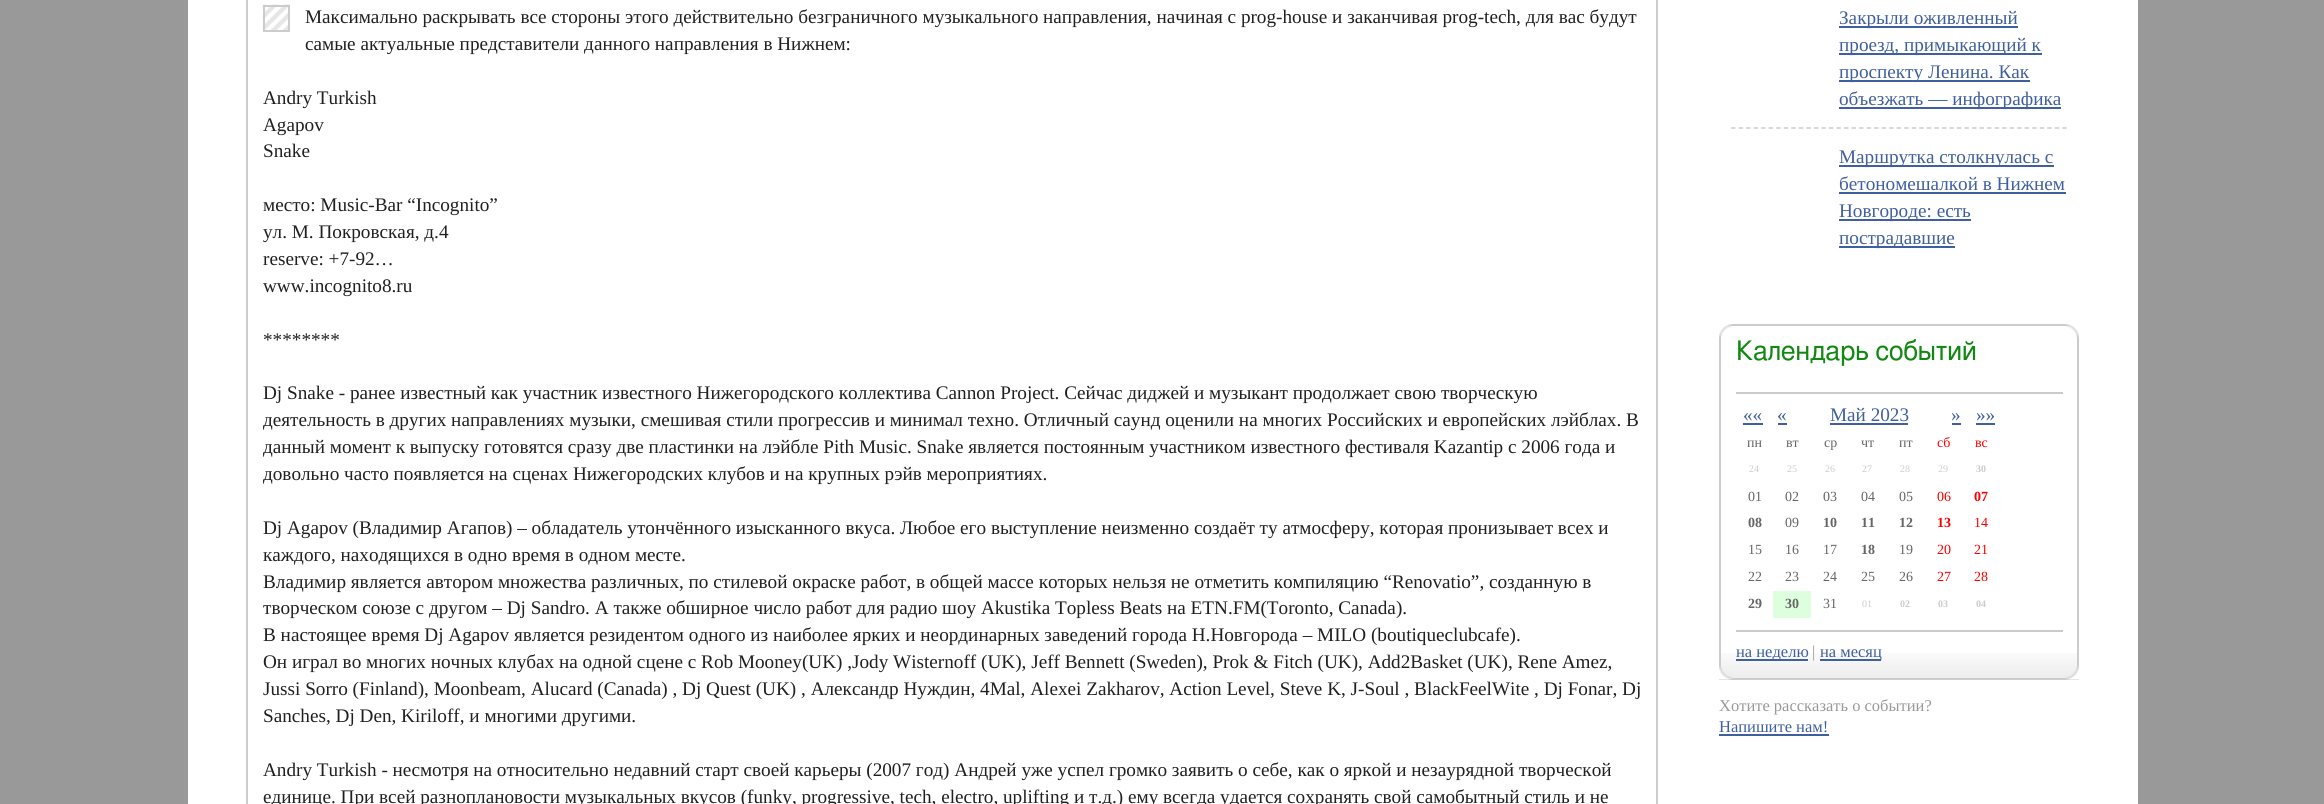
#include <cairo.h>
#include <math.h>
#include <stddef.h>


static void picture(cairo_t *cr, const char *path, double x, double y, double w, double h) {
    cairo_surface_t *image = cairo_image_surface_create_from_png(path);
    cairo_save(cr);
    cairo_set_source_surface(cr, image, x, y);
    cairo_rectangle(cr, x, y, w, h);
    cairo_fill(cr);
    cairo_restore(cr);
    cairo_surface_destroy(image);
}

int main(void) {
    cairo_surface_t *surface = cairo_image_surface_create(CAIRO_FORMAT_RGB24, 2324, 804);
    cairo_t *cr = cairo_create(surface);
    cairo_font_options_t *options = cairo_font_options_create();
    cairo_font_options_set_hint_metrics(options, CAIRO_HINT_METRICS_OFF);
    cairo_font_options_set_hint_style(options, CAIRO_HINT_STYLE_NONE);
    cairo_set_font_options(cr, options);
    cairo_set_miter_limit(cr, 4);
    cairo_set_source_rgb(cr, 0.6, 0.6, 0.6);
    cairo_paint(cr);
    cairo_set_source_rgb(cr, 1, 1, 1);
    cairo_rectangle(cr, 188, 0, 1950, 804);
    cairo_fill(cr);
    cairo_rectangle(cr, 247, -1, 1410, 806);
    cairo_set_source_rgb(cr, 0.8, 0.8, 0.8);
    cairo_stroke(cr);
    picture(cr, "img1.png", 262, 4, 28, 28);
    cairo_rectangle(cr, 264, 6, 25, 25);
    cairo_stroke(cr);
    cairo_select_font_face(cr, "Liberation Serif", CAIRO_FONT_SLANT_NORMAL, CAIRO_FONT_WEIGHT_NORMAL);
    cairo_set_font_size(cr, 19.2);
    cairo_set_source_rgb(cr, 0.125, 0.125, 0.125);
    cairo_move_to(cr, 305, 23);
    cairo_show_text(cr, "Максимально раскрывать все стороны этого действительно безграничного музыкального направления, начиная с prog-house и заканчивая prog-tech, для вас будут");
    cairo_move_to(cr, 305, 50);
    cairo_show_text(cr, "самые актуальные представители данного направления в Нижнем:");
    cairo_move_to(cr, 263, 104);
    cairo_show_text(cr, "Andry Turkish");
    cairo_move_to(cr, 263, 131);
    cairo_show_text(cr, "Agapov");
    cairo_move_to(cr, 263, 157);
    cairo_show_text(cr, "Snake");
    cairo_move_to(cr, 263, 211);
    cairo_show_text(cr, "место: Music-Bar “Incognito”");
    cairo_save(cr);
    cairo_rectangle(cr, 263, 0, 1378, 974);
    cairo_clip(cr);
    cairo_move_to(cr, 263, 238);
    cairo_show_text(cr, "ул. М. Покровская, д.4");
    cairo_restore(cr);
    cairo_move_to(cr, 263, 265);
    cairo_show_text(cr, "reserve: +7-92…");
    cairo_move_to(cr, 263, 292);
    cairo_show_text(cr, "www.incognito8.ru");
    cairo_move_to(cr, 263, 346);
    cairo_show_text(cr, "********");
    cairo_move_to(cr, 263, 399);
    cairo_show_text(cr, "Dj Snake - ранее известный как участник известного Нижегородского коллектива Cannon Project. Сейчас диджей и музыкант продолжает свою творческую");
    cairo_save(cr);
    cairo_rectangle(cr, 263, 0, 1378, 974);
    cairo_clip(cr);
    cairo_move_to(cr, 263, 426);
    cairo_show_text(cr, "деятельность в других направлениях музыки, смешивая стили прогрессив и минимал техно. Отличный саунд оценили на многих Российских и европейских лэйблах. В");
    cairo_move_to(cr, 263, 453);
    cairo_show_text(cr, "данный момент к выпуску готовятся сразу две пластинки на лэйбле Pith Music. Snake является постоянным участником известного фестиваля Kazantip с 2006 года и");
    cairo_move_to(cr, 263, 480);
    cairo_show_text(cr, "довольно часто появляется на сценах Нижегородских клубов и на крупных рэйв мероприятиях.");
    cairo_restore(cr);
    cairo_move_to(cr, 263, 534);
    cairo_show_text(cr, "Dj Agapov (Владимир Агапов) – обладатель утончённого изысканного вкуса. Любое его выступление неизменно создаёт ту атмосферу, которая пронизывает всех и");
    cairo_move_to(cr, 263, 561);
    cairo_show_text(cr, "каждого, находящихся в одно время в одном месте.");
    cairo_move_to(cr, 263, 588);
    cairo_show_text(cr, "Владимир является автором множества различных, по стилевой окраске работ, в общей массе которых нельзя не отметить компиляцию “Renovatio”, созданную в");
    cairo_save(cr);
    cairo_rectangle(cr, 263, 0, 1378, 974);
    cairo_clip(cr);
    cairo_move_to(cr, 263, 614);
    cairo_show_text(cr, "творческом союзе с другом – Dj Sandro. А также обширное число работ для радио шоу Akustika Topless Beats на ETN.FM(Toronto, Canada).");
    cairo_restore(cr);
    cairo_move_to(cr, 263, 641);
    cairo_show_text(cr, "В настоящее время Dj Agapov является резидентом одного из наиболее ярких и неординарных заведений города Н.Новгорода – MILO (boutiqueclubcafe).");
    cairo_move_to(cr, 263, 668);
    cairo_show_text(cr, "Он играл во многих ночных клубах на одной сцене с Rob Mooney(UK) ,Jody Wisternoff (UK), Jeff Bennett (Sweden), Prok & Fitch (UK), Add2Basket (UK), Rene Amez,");
    cairo_move_to(cr, 263, 695);
    cairo_show_text(cr, "Jussi Sorro (Finland), Moonbeam, Alucard (Canada) , Dj Quest (UK) , Александр Нуждин, 4Mal, Alexei Zakharov, Action Level, Steve K, J-Soul , BlackFeelWite , Dj Fonar, Dj");
    cairo_move_to(cr, 263, 722);
    cairo_show_text(cr, "Sanches, Dj Den, Kiriloff, и многими другими.");
    cairo_move_to(cr, 263, 776);
    cairo_show_text(cr, "Andry Turkish - несмотря на относительно недавний старт своей карьеры (2007 год) Андрей уже успел громко заявить о себе, как о яркой и незаурядной творческой");
    cairo_move_to(cr, 263, 803);
    cairo_show_text(cr, "единице. При всей разноплановости музыкальных вкусов (funky, progressive, tech, electro, uplifting и т.д.) ему всегда удается сохранять свой самобытный стиль и не");
    cairo_set_source_rgb(cr, 0.247, 0.373, 0.62);
    cairo_rectangle(cr, 1839, 26, 179, 2);
    cairo_fill(cr);
    cairo_move_to(cr, 1839, 24);
    cairo_show_text(cr, "Закрыли оживленный");
    cairo_rectangle(cr, 1839, 53, 203, 2);
    cairo_fill(cr);
    cairo_move_to(cr, 1839, 51);
    cairo_show_text(cr, "проезд, примыкающий к");
    cairo_rectangle(cr, 1839, 80, 191, 2);
    cairo_fill(cr);
    cairo_move_to(cr, 1839, 78);
    cairo_show_text(cr, "проспекту Ленина. Как");
    cairo_rectangle(cr, 1839, 107, 222, 2);
    cairo_fill(cr);
    cairo_move_to(cr, 1839, 105);
    cairo_show_text(cr, "объезжать — инфографика");
    cairo_new_path(cr);
    cairo_move_to(cr, 1731, 128);
    cairo_line_to(cr, 2067, 128);
    cairo_set_source_rgb(cr, 0.8, 0.8, 0.8);
    cairo_set_line_width(cr, 1.5);
    cairo_set_dash(cr, (double[]){4.5, 3.03}, 2, 0);
    cairo_stroke(cr);
    cairo_set_source_rgb(cr, 0.247, 0.373, 0.62);
    cairo_rectangle(cr, 1839, 165, 215, 2);
    cairo_fill(cr);
    cairo_move_to(cr, 1839, 163);
    cairo_show_text(cr, "Маршрутка столкнулась с");
    cairo_move_to(cr, 1839, 190);
    cairo_show_text(cr, "бетономешалкой в Нижнем");
    cairo_rectangle(cr, 1839, 192, 227, 2);
    cairo_fill(cr);
    cairo_rectangle(cr, 1839, 219, 132, 2);
    cairo_fill(cr);
    cairo_move_to(cr, 1839, 217);
    cairo_show_text(cr, "Новгороде: есть");
    cairo_rectangle(cr, 1839, 246, 116, 2);
    cairo_fill(cr);
    cairo_move_to(cr, 1839, 244);
    cairo_show_text(cr, "пострадавшие");
    picture(cr, "img2.png", 1721, 653, 356, 25);
    cairo_rectangle(cr, 1720, 325, 358, 354);
    cairo_set_source_rgb(cr, 0.8, 0.8, 0.8);
    cairo_set_line_width(cr, 2);
    cairo_set_dash(cr, NULL, 0, 0);
    cairo_stroke(cr);
    picture(cr, "img3.png", 1719, 324, 14, 13);
    picture(cr, "img4.png", 2065, 324, 14, 13);
    cairo_select_font_face(cr, "FreeSans", CAIRO_FONT_SLANT_NORMAL, CAIRO_FONT_WEIGHT_NORMAL);
    cairo_set_font_size(cr, 26.9);
    cairo_set_source_rgb(cr, 0.067, 0.533, 0.067);
    cairo_move_to(cr, 1736, 360);
    cairo_show_text(cr, "Календарь событий");
    cairo_set_source_rgb(cr, 0.8, 0.8, 0.8);
    cairo_rectangle(cr, 1736, 392, 327, 2);
    cairo_fill(cr);
    cairo_select_font_face(cr, "Liberation Serif", CAIRO_FONT_SLANT_NORMAL, CAIRO_FONT_WEIGHT_NORMAL);
    cairo_set_font_size(cr, 19.2);
    cairo_set_source_rgb(cr, 0.247, 0.373, 0.62);
    cairo_move_to(cr, 1743, 421);
    cairo_show_text(cr, "««");
    cairo_rectangle(cr, 1743, 423, 20, 2);
    cairo_fill(cr);
    cairo_move_to(cr, 1777, 421);
    cairo_show_text(cr, "«");
    cairo_rectangle(cr, 1778, 423, 9, 2);
    cairo_fill(cr);
    cairo_move_to(cr, 1830, 421);
    cairo_show_text(cr, "Май 2023");
    cairo_rectangle(cr, 1830, 423, 78, 2);
    cairo_fill(cr);
    cairo_move_to(cr, 1951, 421);
    cairo_show_text(cr, "»");
    cairo_rectangle(cr, 1952, 423, 9, 2);
    cairo_fill(cr);
    cairo_move_to(cr, 1976, 421);
    cairo_show_text(cr, "»»");
    cairo_rectangle(cr, 1976, 423, 19, 2);
    cairo_fill(cr);
    cairo_set_font_size(cr, 14);
    cairo_set_source_rgb(cr, 0.4, 0.4, 0.4);
    cairo_move_to(cr, 1747, 447);
    cairo_show_text(cr, "пн");
    cairo_move_to(cr, 1786, 447);
    cairo_show_text(cr, "вт");
    cairo_move_to(cr, 1824, 447);
    cairo_show_text(cr, "ср");
    cairo_move_to(cr, 1861, 447);
    cairo_show_text(cr, "чт");
    cairo_move_to(cr, 1899, 447);
    cairo_show_text(cr, "пт");
    cairo_set_source_rgb(cr, 1, 0, 0);
    cairo_move_to(cr, 1937, 447);
    cairo_show_text(cr, "сб");
    cairo_move_to(cr, 1975, 447);
    cairo_show_text(cr, "вс");
    cairo_set_font_size(cr, 10);
    cairo_set_source_rgb(cr, 0.8, 0.8, 0.8);
    cairo_move_to(cr, 1749, 472);
    cairo_show_text(cr, "24");
    cairo_move_to(cr, 1787, 472);
    cairo_show_text(cr, "25");
    cairo_move_to(cr, 1825, 472);
    cairo_show_text(cr, "26");
    cairo_move_to(cr, 1862, 472);
    cairo_show_text(cr, "27");
    cairo_move_to(cr, 1900, 472);
    cairo_show_text(cr, "28");
    cairo_move_to(cr, 1938, 472);
    cairo_show_text(cr, "29");
    cairo_select_font_face(cr, "Liberation Serif", CAIRO_FONT_SLANT_NORMAL, CAIRO_FONT_WEIGHT_BOLD);
    cairo_move_to(cr, 1976, 472);
    cairo_show_text(cr, "30");
    cairo_select_font_face(cr, "Liberation Serif", CAIRO_FONT_SLANT_NORMAL, CAIRO_FONT_WEIGHT_NORMAL);
    cairo_set_font_size(cr, 14);
    cairo_set_source_rgb(cr, 0.4, 0.4, 0.4);
    cairo_move_to(cr, 1748, 501);
    cairo_show_text(cr, "01");
    cairo_move_to(cr, 1785, 501);
    cairo_show_text(cr, "02");
    cairo_move_to(cr, 1823, 501);
    cairo_show_text(cr, "03");
    cairo_move_to(cr, 1861, 501);
    cairo_show_text(cr, "04");
    cairo_move_to(cr, 1899, 501);
    cairo_show_text(cr, "05");
    cairo_set_source_rgb(cr, 1, 0, 0);
    cairo_move_to(cr, 1937, 501);
    cairo_show_text(cr, "06");
    cairo_select_font_face(cr, "Liberation Serif", CAIRO_FONT_SLANT_NORMAL, CAIRO_FONT_WEIGHT_BOLD);
    cairo_move_to(cr, 1974, 501);
    cairo_show_text(cr, "07");
    cairo_set_source_rgb(cr, 0.4, 0.4, 0.4);
    cairo_move_to(cr, 1748, 527);
    cairo_show_text(cr, "08");
    cairo_select_font_face(cr, "Liberation Serif", CAIRO_FONT_SLANT_NORMAL, CAIRO_FONT_WEIGHT_NORMAL);
    cairo_move_to(cr, 1785, 527);
    cairo_show_text(cr, "09");
    cairo_select_font_face(cr, "Liberation Serif", CAIRO_FONT_SLANT_NORMAL, CAIRO_FONT_WEIGHT_BOLD);
    cairo_move_to(cr, 1823, 527);
    cairo_show_text(cr, "10");
    cairo_move_to(cr, 1861, 527);
    cairo_show_text(cr, "11");
    cairo_move_to(cr, 1899, 527);
    cairo_show_text(cr, "12");
    cairo_set_source_rgb(cr, 1, 0, 0);
    cairo_move_to(cr, 1937, 527);
    cairo_show_text(cr, "13");
    cairo_select_font_face(cr, "Liberation Serif", CAIRO_FONT_SLANT_NORMAL, CAIRO_FONT_WEIGHT_NORMAL);
    cairo_move_to(cr, 1974, 527);
    cairo_show_text(cr, "14");
    cairo_set_source_rgb(cr, 0.4, 0.4, 0.4);
    cairo_move_to(cr, 1748, 554);
    cairo_show_text(cr, "15");
    cairo_move_to(cr, 1785, 554);
    cairo_show_text(cr, "16");
    cairo_move_to(cr, 1823, 554);
    cairo_show_text(cr, "17");
    cairo_select_font_face(cr, "Liberation Serif", CAIRO_FONT_SLANT_NORMAL, CAIRO_FONT_WEIGHT_BOLD);
    cairo_move_to(cr, 1861, 554);
    cairo_show_text(cr, "18");
    cairo_select_font_face(cr, "Liberation Serif", CAIRO_FONT_SLANT_NORMAL, CAIRO_FONT_WEIGHT_NORMAL);
    cairo_move_to(cr, 1899, 554);
    cairo_show_text(cr, "19");
    cairo_set_source_rgb(cr, 1, 0, 0);
    cairo_move_to(cr, 1937, 554);
    cairo_show_text(cr, "20");
    cairo_move_to(cr, 1974, 554);
    cairo_show_text(cr, "21");
    cairo_set_source_rgb(cr, 0.4, 0.4, 0.4);
    cairo_move_to(cr, 1748, 581);
    cairo_show_text(cr, "22");
    cairo_move_to(cr, 1785, 581);
    cairo_show_text(cr, "23");
    cairo_move_to(cr, 1823, 581);
    cairo_show_text(cr, "24");
    cairo_move_to(cr, 1861, 581);
    cairo_show_text(cr, "25");
    cairo_move_to(cr, 1899, 581);
    cairo_show_text(cr, "26");
    cairo_set_source_rgb(cr, 1, 0, 0);
    cairo_move_to(cr, 1937, 581);
    cairo_show_text(cr, "27");
    cairo_move_to(cr, 1974, 581);
    cairo_show_text(cr, "28");
    cairo_select_font_face(cr, "Liberation Serif", CAIRO_FONT_SLANT_NORMAL, CAIRO_FONT_WEIGHT_BOLD);
    cairo_set_source_rgb(cr, 0.4, 0.4, 0.4);
    cairo_move_to(cr, 1748, 608);
    cairo_show_text(cr, "29");
    cairo_set_source_rgb(cr, 0.867, 1, 0.867);
    cairo_rectangle(cr, 1773, 591, 38, 27);
    cairo_fill(cr);
    cairo_set_source_rgb(cr, 0.4, 0.4, 0.4);
    cairo_move_to(cr, 1785, 608);
    cairo_show_text(cr, "30");
    cairo_select_font_face(cr, "Liberation Serif", CAIRO_FONT_SLANT_NORMAL, CAIRO_FONT_WEIGHT_NORMAL);
    cairo_move_to(cr, 1823, 608);
    cairo_show_text(cr, "31");
    cairo_set_font_size(cr, 10);
    cairo_set_source_rgb(cr, 0.8, 0.8, 0.8);
    cairo_move_to(cr, 1862, 607);
    cairo_show_text(cr, "01");
    cairo_select_font_face(cr, "Liberation Serif", CAIRO_FONT_SLANT_NORMAL, CAIRO_FONT_WEIGHT_BOLD);
    cairo_move_to(cr, 1900, 607);
    cairo_show_text(cr, "02");
    cairo_move_to(cr, 1938, 607);
    cairo_show_text(cr, "03");
    cairo_move_to(cr, 1976, 607);
    cairo_show_text(cr, "04");
    cairo_rectangle(cr, 1736, 630, 327, 2);
    cairo_fill(cr);
    cairo_set_source_rgb(cr, 0.247, 0.373, 0.62);
    cairo_rectangle(cr, 1736, 659, 72, 2);
    cairo_fill(cr);
    cairo_select_font_face(cr, "Liberation Serif", CAIRO_FONT_SLANT_NORMAL, CAIRO_FONT_WEIGHT_NORMAL);
    cairo_set_font_size(cr, 16.5);
    cairo_move_to(cr, 1736, 657);
    cairo_show_text(cr, "на неделю");
    cairo_set_source_rgb(cr, 0.6, 0.6, 0.6);
    cairo_move_to(cr, 1812, 657);
    cairo_show_text(cr, "|");
    cairo_set_source_rgb(cr, 0.247, 0.373, 0.62);
    cairo_rectangle(cr, 1820, 659, 61, 2);
    cairo_fill(cr);
    cairo_move_to(cr, 1820, 657);
    cairo_show_text(cr, "на месяц");
    picture(cr, "img5.png", 1719, 666, 14, 14);
    picture(cr, "img6.png", 2065, 666, 14, 14);
    cairo_set_source_rgb(cr, 0.6, 0.6, 0.6);
    cairo_move_to(cr, 1719, 711);
    cairo_show_text(cr, "Хотите рассказать о событии?");
    cairo_set_source_rgb(cr, 0.247, 0.373, 0.62);
    cairo_move_to(cr, 1719, 732);
    cairo_show_text(cr, "Напишите нам!");
    cairo_rectangle(cr, 1719, 734, 110, 2);
    cairo_fill(cr);
    cairo_surface_write_to_png(surface, "page.png");
    cairo_font_options_destroy(options);
    cairo_destroy(cr);
    cairo_surface_destroy(surface);
    return 0;
}
